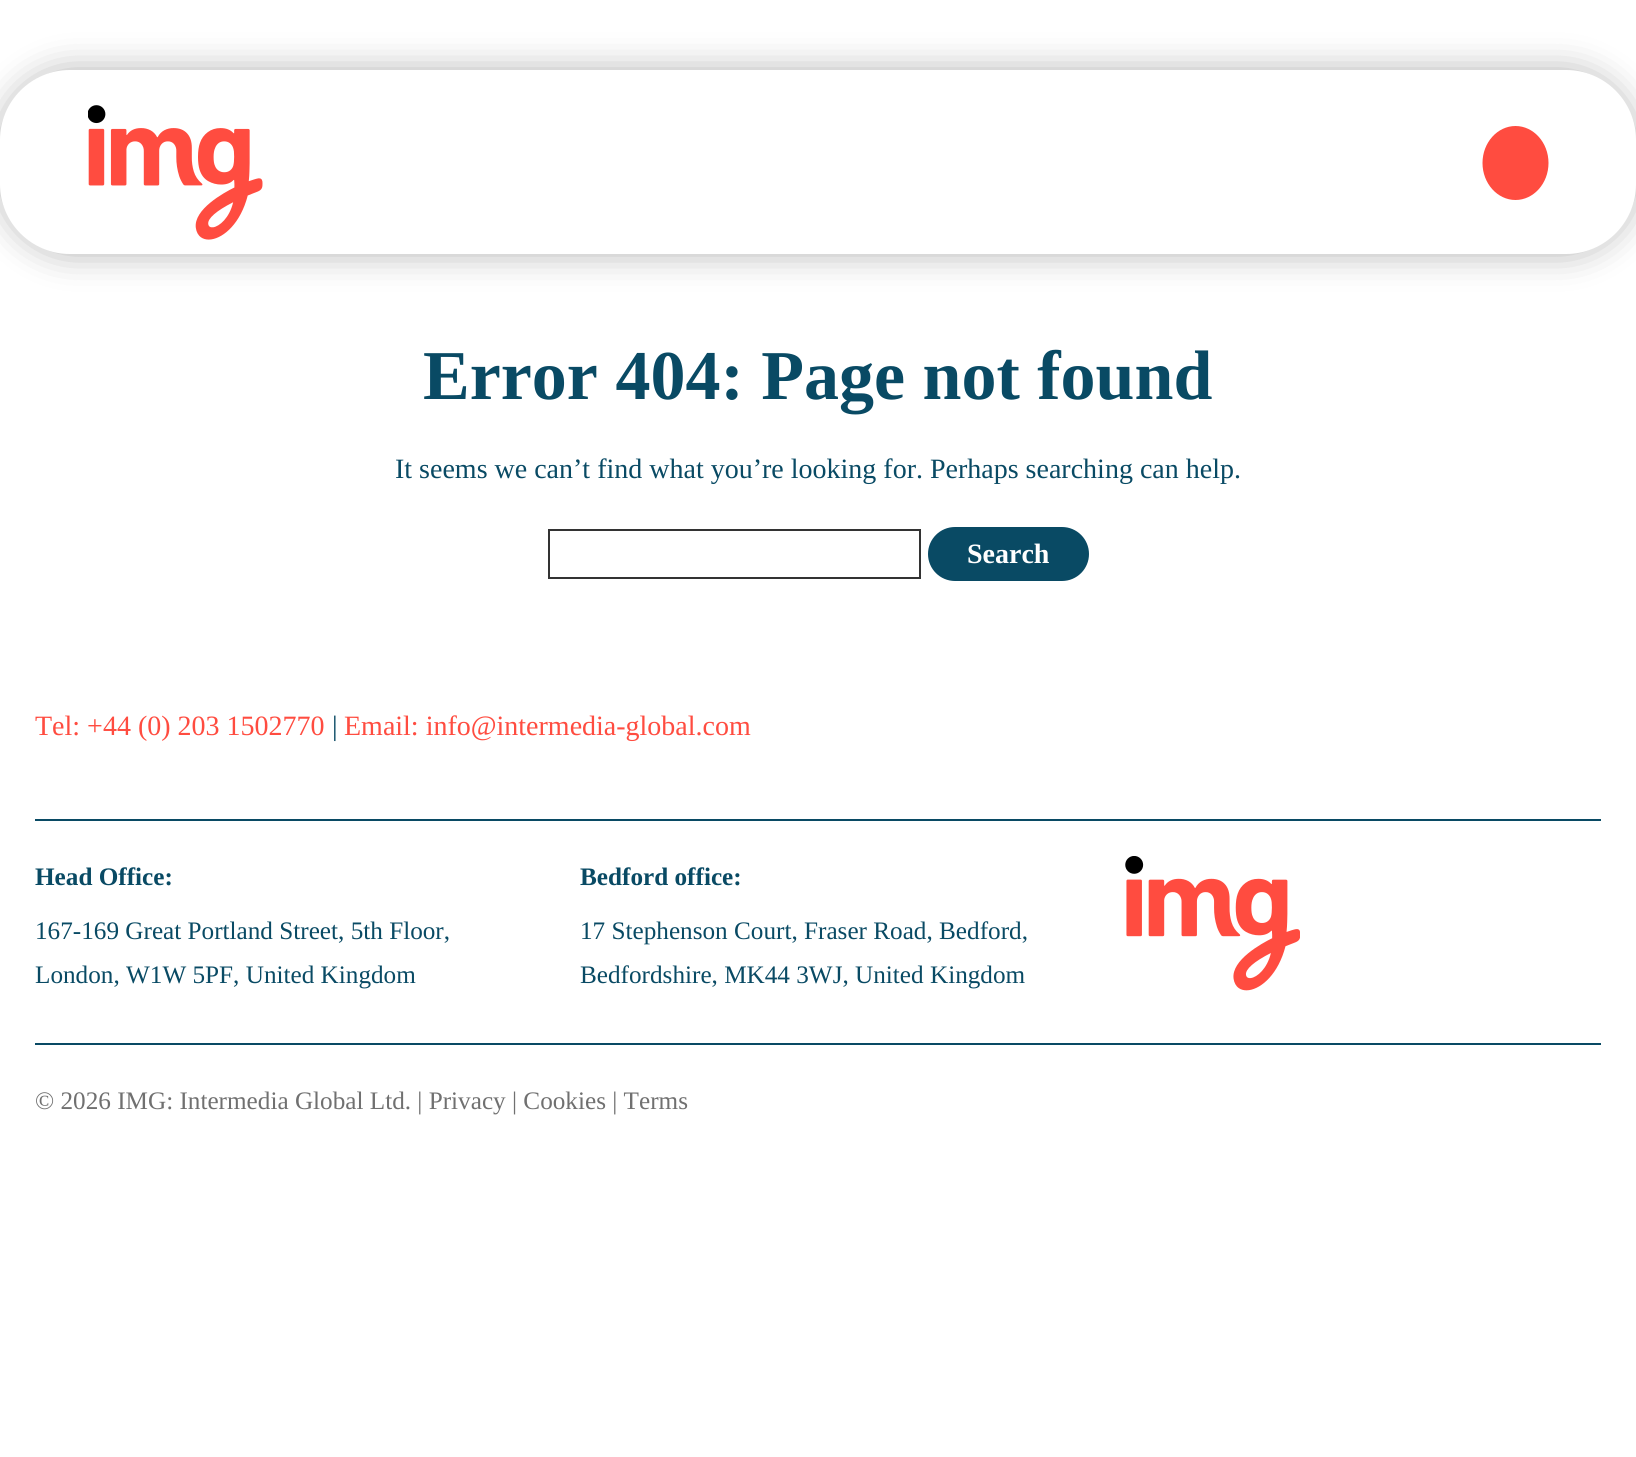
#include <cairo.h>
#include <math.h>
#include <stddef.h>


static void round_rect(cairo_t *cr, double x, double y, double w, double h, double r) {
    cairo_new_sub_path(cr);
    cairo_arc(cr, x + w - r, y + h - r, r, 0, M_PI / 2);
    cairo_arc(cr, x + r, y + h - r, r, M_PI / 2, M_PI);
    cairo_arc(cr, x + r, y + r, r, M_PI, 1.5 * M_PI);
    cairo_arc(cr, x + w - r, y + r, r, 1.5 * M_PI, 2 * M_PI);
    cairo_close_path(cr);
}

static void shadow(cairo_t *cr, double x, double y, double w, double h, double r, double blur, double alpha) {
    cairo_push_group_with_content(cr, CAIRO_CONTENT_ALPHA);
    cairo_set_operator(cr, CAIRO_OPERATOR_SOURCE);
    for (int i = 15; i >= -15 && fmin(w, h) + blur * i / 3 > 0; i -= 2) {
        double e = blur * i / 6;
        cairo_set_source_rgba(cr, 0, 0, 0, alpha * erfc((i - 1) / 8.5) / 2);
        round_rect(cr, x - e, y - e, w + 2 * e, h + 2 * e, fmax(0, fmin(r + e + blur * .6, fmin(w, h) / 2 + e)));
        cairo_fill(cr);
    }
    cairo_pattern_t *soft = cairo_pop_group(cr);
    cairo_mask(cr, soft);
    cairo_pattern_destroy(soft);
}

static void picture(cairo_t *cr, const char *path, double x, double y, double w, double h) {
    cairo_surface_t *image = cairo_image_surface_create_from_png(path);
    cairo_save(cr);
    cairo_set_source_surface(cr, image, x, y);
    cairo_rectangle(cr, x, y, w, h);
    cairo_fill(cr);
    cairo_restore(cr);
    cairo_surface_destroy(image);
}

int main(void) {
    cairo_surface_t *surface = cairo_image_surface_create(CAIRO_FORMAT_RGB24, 1636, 1457);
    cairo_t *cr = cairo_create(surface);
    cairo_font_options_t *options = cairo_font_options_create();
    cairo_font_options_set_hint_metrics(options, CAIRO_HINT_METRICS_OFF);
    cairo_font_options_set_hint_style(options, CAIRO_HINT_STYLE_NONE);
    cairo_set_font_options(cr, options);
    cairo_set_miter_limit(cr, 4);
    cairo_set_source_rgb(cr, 1, 1, 1);
    cairo_paint(cr);
    cairo_set_source_rgb(cr, 0, 0, 0);
    shadow(cr, 0, 70, 1636, 184, 70, 17.5, 0.3);
    cairo_set_source_rgb(cr, 1, 1, 1);
    round_rect(cr, 0, 70, 1636, 184, 70);
    cairo_fill(cr);
    picture(cr, "img1.png", 88, 105, 175, 135);
    cairo_set_source_rgb(cr, 1, 0.298, 0.251);
    cairo_new_path(cr);
    cairo_move_to(cr, 1515.5, 126);
    cairo_curve_to(cr, 1533.5, 126, 1548.5, 142.5, 1548.5, 163);
    cairo_curve_to(cr, 1548.5, 183.5, 1533.5, 200, 1515.5, 200);
    cairo_curve_to(cr, 1497.5, 200, 1482.5, 183.5, 1482.5, 163);
    cairo_curve_to(cr, 1482.5, 142.5, 1497.5, 126, 1515.5, 126);
    cairo_close_path(cr);
    cairo_fill(cr);
    cairo_select_font_face(cr, "Liberation Serif", CAIRO_FONT_SLANT_NORMAL, CAIRO_FONT_WEIGHT_BOLD);
    cairo_set_font_size(cr, 70);
    cairo_set_source_rgb(cr, 0.039, 0.29, 0.392);
    cairo_move_to(cr, 423, 399);
    cairo_show_text(cr, "Error 404: Page not found");
    cairo_select_font_face(cr, "Liberation Serif", CAIRO_FONT_SLANT_NORMAL, CAIRO_FONT_WEIGHT_NORMAL);
    cairo_set_font_size(cr, 28);
    cairo_move_to(cr, 395, 478);
    cairo_show_text(cr, "It seems we can’t find what you’re looking for. Perhaps searching can help.");
    cairo_rectangle(cr, 549, 530, 371, 48);
    cairo_set_source_rgb(cr, 0.2, 0.2, 0.2);
    cairo_stroke(cr);
    cairo_set_source_rgb(cr, 0.039, 0.29, 0.392);
    round_rect(cr, 928, 527, 161, 54, 27);
    cairo_fill(cr);
    cairo_select_font_face(cr, "Liberation Serif", CAIRO_FONT_SLANT_NORMAL, CAIRO_FONT_WEIGHT_BOLD);
    cairo_set_source_rgb(cr, 1, 1, 1);
    cairo_move_to(cr, 967, 563);
    cairo_show_text(cr, "Search");
    cairo_select_font_face(cr, "Liberation Serif", CAIRO_FONT_SLANT_NORMAL, CAIRO_FONT_WEIGHT_NORMAL);
    cairo_set_source_rgb(cr, 1, 0.298, 0.251);
    cairo_move_to(cr, 35, 735);
    cairo_show_text(cr, "Tel: +44 (0) 203 1502770");
    cairo_set_source_rgb(cr, 0.039, 0.29, 0.392);
    cairo_move_to(cr, 332, 735);
    cairo_show_text(cr, "|");
    cairo_set_source_rgb(cr, 1, 0.298, 0.251);
    cairo_move_to(cr, 344, 735);
    cairo_show_text(cr, "Email: info@intermedia-global.com");
    cairo_set_source_rgb(cr, 0.039, 0.29, 0.392);
    cairo_rectangle(cr, 35, 819, 1566, 2);
    cairo_fill(cr);
    cairo_rectangle(cr, 35, 1043, 1566, 2);
    cairo_fill(cr);
    cairo_select_font_face(cr, "Liberation Serif", CAIRO_FONT_SLANT_NORMAL, CAIRO_FONT_WEIGHT_BOLD);
    cairo_set_font_size(cr, 25.2);
    cairo_move_to(cr, 35, 885);
    cairo_show_text(cr, "Head Office:");
    cairo_select_font_face(cr, "Liberation Serif", CAIRO_FONT_SLANT_NORMAL, CAIRO_FONT_WEIGHT_NORMAL);
    cairo_move_to(cr, 35, 939);
    cairo_show_text(cr, "167-169 Great Portland Street, 5th Floor,");
    cairo_move_to(cr, 35, 983);
    cairo_show_text(cr, "London, W1W 5PF, United Kingdom");
    cairo_select_font_face(cr, "Liberation Serif", CAIRO_FONT_SLANT_NORMAL, CAIRO_FONT_WEIGHT_BOLD);
    cairo_move_to(cr, 580, 885);
    cairo_show_text(cr, "Bedford office:");
    cairo_select_font_face(cr, "Liberation Serif", CAIRO_FONT_SLANT_NORMAL, CAIRO_FONT_WEIGHT_NORMAL);
    cairo_move_to(cr, 580, 939);
    cairo_show_text(cr, "17 Stephenson Court, Fraser Road, Bedford,");
    cairo_move_to(cr, 580, 983);
    cairo_show_text(cr, "Bedfordshire, MK44 3WJ, United Kingdom");
    picture(cr, "img2.png", 1125, 856, 175, 135);
    cairo_set_source_rgb(cr, 0.439, 0.439, 0.439);
    cairo_move_to(cr, 35, 1109);
    cairo_show_text(cr, "© 2026 IMG: Intermedia Global Ltd. | Privacy | Cookies | Terms");
    cairo_surface_write_to_png(surface, "page.png");
    cairo_font_options_destroy(options);
    cairo_destroy(cr);
    cairo_surface_destroy(surface);
    return 0;
}
